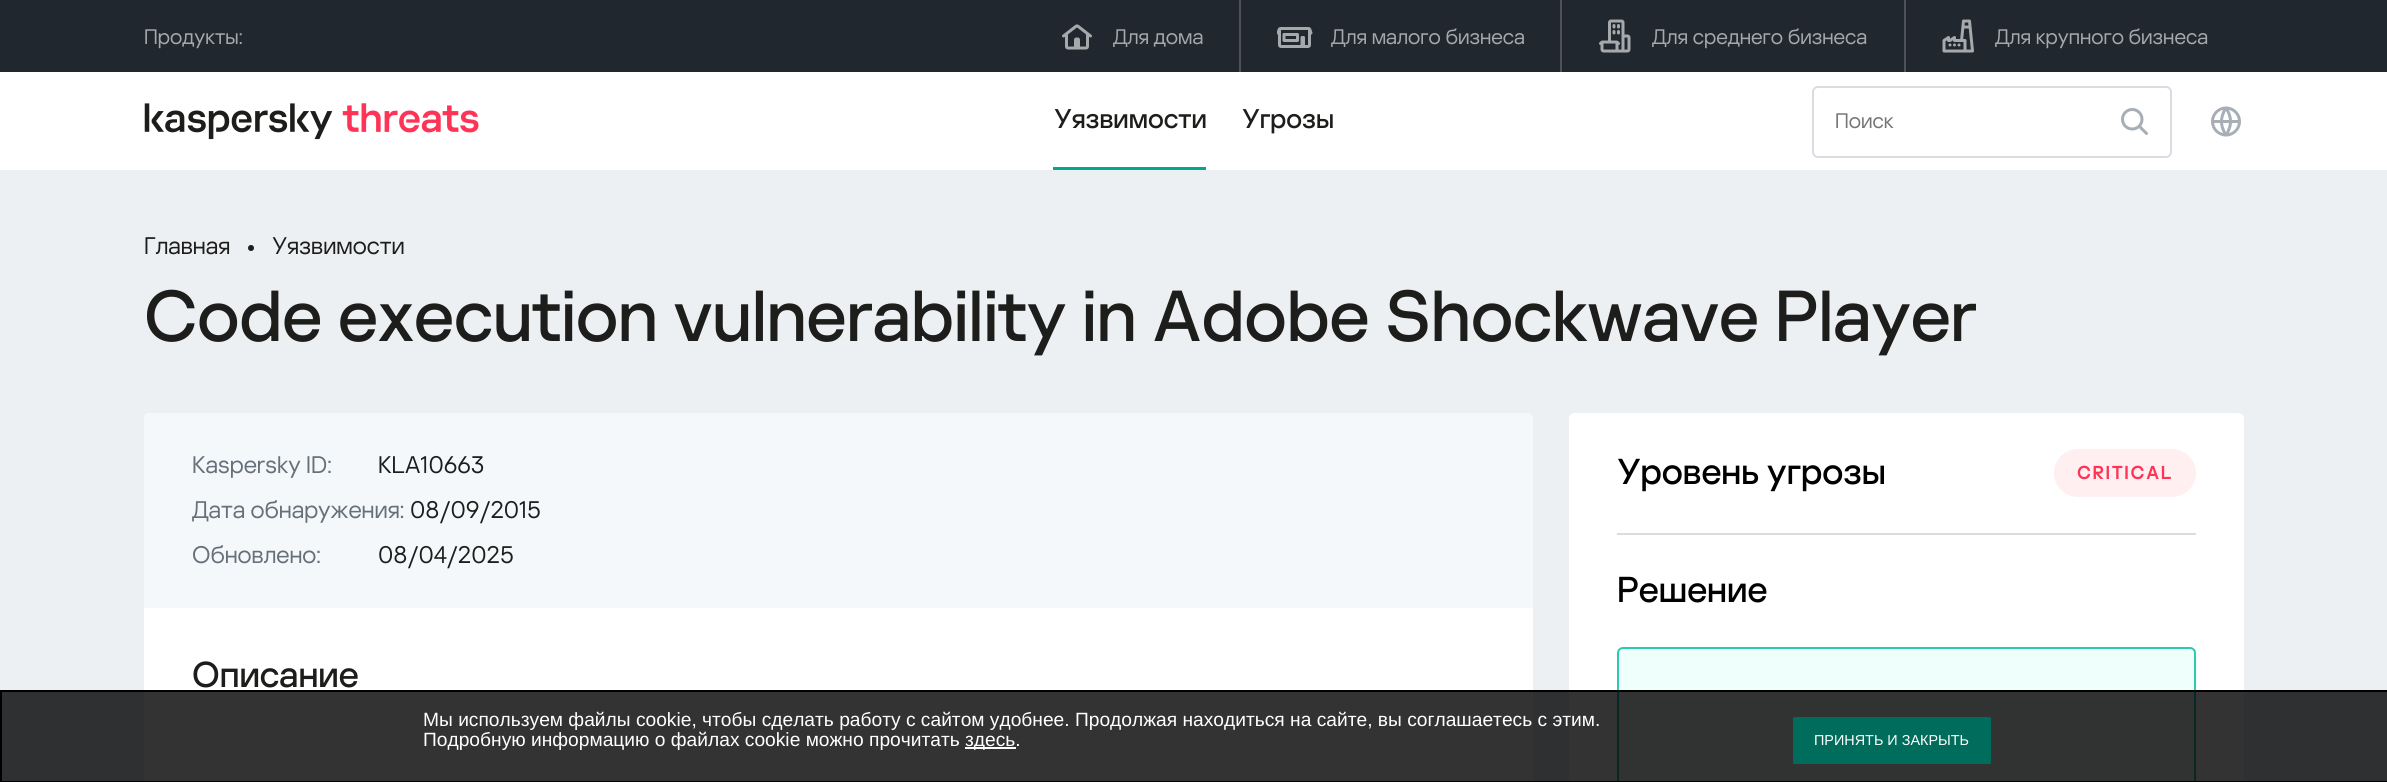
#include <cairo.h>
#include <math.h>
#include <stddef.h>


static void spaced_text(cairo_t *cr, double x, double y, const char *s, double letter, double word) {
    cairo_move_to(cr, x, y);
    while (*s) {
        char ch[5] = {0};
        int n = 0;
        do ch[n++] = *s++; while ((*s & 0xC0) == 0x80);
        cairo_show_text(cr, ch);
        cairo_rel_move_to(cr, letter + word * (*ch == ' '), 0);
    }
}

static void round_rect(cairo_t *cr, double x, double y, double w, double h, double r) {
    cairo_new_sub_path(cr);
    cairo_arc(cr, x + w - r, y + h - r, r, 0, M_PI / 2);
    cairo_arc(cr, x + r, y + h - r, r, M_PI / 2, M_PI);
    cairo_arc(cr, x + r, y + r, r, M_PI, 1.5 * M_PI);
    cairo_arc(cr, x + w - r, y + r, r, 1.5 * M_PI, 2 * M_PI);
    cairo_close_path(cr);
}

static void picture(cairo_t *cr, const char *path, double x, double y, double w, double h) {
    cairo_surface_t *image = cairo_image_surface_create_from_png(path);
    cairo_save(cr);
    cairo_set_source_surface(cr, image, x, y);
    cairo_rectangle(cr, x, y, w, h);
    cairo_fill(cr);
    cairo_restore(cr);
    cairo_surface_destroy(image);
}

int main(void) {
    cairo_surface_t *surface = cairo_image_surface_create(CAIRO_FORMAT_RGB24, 2387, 782);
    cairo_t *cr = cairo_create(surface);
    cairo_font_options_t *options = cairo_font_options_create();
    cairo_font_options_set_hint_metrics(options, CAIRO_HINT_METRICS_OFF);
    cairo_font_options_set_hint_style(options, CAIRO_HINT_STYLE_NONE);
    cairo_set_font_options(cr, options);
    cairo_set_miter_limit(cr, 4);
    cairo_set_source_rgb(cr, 0.929, 0.941, 0.953);
    cairo_paint(cr);
    cairo_set_source_rgb(cr, 0.129, 0.153, 0.184);
    cairo_rectangle(cr, 0, 0, 2387, 72);
    cairo_fill(cr);
    cairo_select_font_face(cr, "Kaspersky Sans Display", CAIRO_FONT_SLANT_NORMAL, CAIRO_FONT_WEIGHT_NORMAL);
    cairo_set_font_size(cr, 21);
    cairo_set_source_rgb(cr, 0.651, 0.663, 0.675);
    cairo_move_to(cr, 144, 44);
    cairo_show_text(cr, "Продукты:");
    cairo_set_source_rgb(cr, 0.302, 0.322, 0.349);
    cairo_rectangle(cr, 1239, 0, 2, 72);
    cairo_fill(cr);
    picture(cr, "img1.png", 1062, 24, 30, 26);
    cairo_set_source_rgb(cr, 0.651, 0.663, 0.675);
    cairo_move_to(cr, 1113, 44);
    cairo_show_text(cr, "Для дома");
    cairo_set_source_rgb(cr, 0.302, 0.322, 0.349);
    cairo_rectangle(cr, 1560, 0, 2, 72);
    cairo_fill(cr);
    picture(cr, "img2.png", 1277, 27, 36, 21);
    cairo_set_source_rgb(cr, 0.651, 0.663, 0.675);
    cairo_move_to(cr, 1331, 44);
    cairo_show_text(cr, "Для малого бизнеса");
    cairo_set_source_rgb(cr, 0.302, 0.322, 0.349);
    cairo_rectangle(cr, 1904, 0, 2, 72);
    cairo_fill(cr);
    picture(cr, "img3.png", 1599, 19, 32, 34);
    cairo_set_source_rgb(cr, 0.651, 0.663, 0.675);
    cairo_move_to(cr, 1652, 44);
    cairo_show_text(cr, "Для среднего бизнеса");
    picture(cr, "img4.png", 1942, 19, 32, 34);
    cairo_move_to(cr, 1995, 44);
    cairo_show_text(cr, "Для крупного бизнеса");
    cairo_set_source_rgb(cr, 1, 1, 1);
    cairo_rectangle(cr, 0, 72, 2387, 98);
    cairo_fill(cr);
    picture(cr, "img5.png", 144, 103, 335, 37);
    cairo_set_source_rgb(cr, 0, 0.659, 0.557);
    cairo_rectangle(cr, 1053, 167, 153, 3);
    cairo_fill(cr);
    cairo_select_font_face(cr, "Kaspersky Sans Display Medium", CAIRO_FONT_SLANT_NORMAL, CAIRO_FONT_WEIGHT_NORMAL);
    cairo_set_font_size(cr, 27);
    cairo_set_source_rgb(cr, 0.114, 0.114, 0.106);
    cairo_move_to(cr, 1054, 128);
    cairo_show_text(cr, "Уязвимости");
    cairo_move_to(cr, 1242, 128);
    cairo_show_text(cr, "Угрозы");
    round_rect(cr, 1813, 87, 358, 70, 5);
    cairo_set_source_rgb(cr, 0.851, 0.867, 0.886);
    cairo_stroke(cr);
    cairo_select_font_face(cr, "Kaspersky Sans Display", CAIRO_FONT_SLANT_NORMAL, CAIRO_FONT_WEIGHT_NORMAL);
    cairo_set_font_size(cr, 21);
    cairo_set_source_rgb(cr, 0.459, 0.459, 0.459);
    cairo_move_to(cr, 1835, 128);
    cairo_show_text(cr, "Поиск");
    picture(cr, "img6.png", 2121, 108, 27, 27);
    picture(cr, "img7.png", 2211, 106, 30, 31);
    cairo_set_font_size(cr, 24);
    cairo_set_source_rgb(cr, 0.114, 0.114, 0.106);
    cairo_move_to(cr, 144, 254);
    cairo_show_text(cr, "Главная");
    cairo_new_path(cr);
    cairo_arc(cr, 251, 248, 3, 0, 2 * M_PI);
    cairo_fill(cr);
    cairo_move_to(cr, 272, 254);
    cairo_show_text(cr, "Уязвимости");
    cairo_select_font_face(cr, "Kaspersky Sans Display Medium", CAIRO_FONT_SLANT_NORMAL, CAIRO_FONT_WEIGHT_NORMAL);
    cairo_set_font_size(cr, 72);
    cairo_move_to(cr, 144, 341);
    cairo_show_text(cr, "Code execution vulnerability in Adobe Shockwave Player");
    cairo_set_source_rgb(cr, 1, 1, 1);
    round_rect(cr, 144, 413, 1389, 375, 6);
    cairo_fill(cr);
    cairo_set_source_rgb(cr, 0.957, 0.969, 0.98);
    cairo_new_path(cr);
    cairo_move_to(cr, 150, 413);
    cairo_line_to(cr, 1527, 413);
    cairo_curve_to(cr, 1530.5, 413, 1533, 415.5, 1533, 419);
    cairo_line_to(cr, 1533, 608);
    cairo_line_to(cr, 144, 608);
    cairo_line_to(cr, 144, 419);
    cairo_curve_to(cr, 144, 415.5, 146.5, 413, 150, 413);
    cairo_close_path(cr);
    cairo_fill(cr);
    cairo_select_font_face(cr, "Kaspersky Sans Display", CAIRO_FONT_SLANT_NORMAL, CAIRO_FONT_WEIGHT_NORMAL);
    cairo_set_font_size(cr, 24);
    cairo_set_source_rgb(cr, 0.404, 0.435, 0.475);
    cairo_move_to(cr, 192, 473);
    cairo_show_text(cr, "Kaspersky ID:");
    cairo_set_source_rgb(cr, 0.114, 0.114, 0.106);
    cairo_move_to(cr, 378, 473);
    cairo_show_text(cr, "KLA10663");
    cairo_set_source_rgb(cr, 0.404, 0.435, 0.475);
    cairo_move_to(cr, 192, 518);
    cairo_show_text(cr, "Дата обнаружения:");
    cairo_set_source_rgb(cr, 0.114, 0.114, 0.106);
    cairo_move_to(cr, 410, 518);
    cairo_show_text(cr, "08/09/2015");
    cairo_set_source_rgb(cr, 0.404, 0.435, 0.475);
    cairo_move_to(cr, 192, 563);
    cairo_show_text(cr, "Обновлено:");
    cairo_set_source_rgb(cr, 0.114, 0.114, 0.106);
    cairo_move_to(cr, 378, 563);
    cairo_show_text(cr, "08/04/2025");
    cairo_select_font_face(cr, "Kaspersky Sans Display Medium", CAIRO_FONT_SLANT_NORMAL, CAIRO_FONT_WEIGHT_NORMAL);
    cairo_set_font_size(cr, 36);
    cairo_move_to(cr, 192, 687);
    cairo_show_text(cr, "Описание");
    cairo_set_source_rgb(cr, 1, 1, 1);
    round_rect(cr, 1569, 413, 675, 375, 6);
    cairo_fill(cr);
    cairo_set_source_rgb(cr, 0.851, 0.867, 0.886);
    cairo_rectangle(cr, 1617, 533, 579, 2);
    cairo_fill(cr);
    cairo_set_source_rgb(cr, 0, 0, 0);
    cairo_move_to(cr, 1617, 484);
    cairo_show_text(cr, "Уровень угрозы");
    cairo_set_source_rgb(cr, 1, 0.937, 0.945);
    round_rect(cr, 2054, 449, 142, 48, 24);
    cairo_fill(cr);
    cairo_select_font_face(cr, "Kaspersky Sans Display", CAIRO_FONT_SLANT_NORMAL, CAIRO_FONT_WEIGHT_BOLD);
    cairo_set_font_size(cr, 18);
    cairo_set_source_rgb(cr, 1, 0.2, 0.333);
    spaced_text(cr, 2077, 479, "CRITICAL", 2.25, 0);
    cairo_select_font_face(cr, "Kaspersky Sans Display Medium", CAIRO_FONT_SLANT_NORMAL, CAIRO_FONT_WEIGHT_NORMAL);
    cairo_set_font_size(cr, 36);
    cairo_set_source_rgb(cr, 0, 0, 0);
    cairo_move_to(cr, 1617, 602);
    cairo_show_text(cr, "Решение");
    cairo_set_source_rgb(cr, 0.937, 1, 0.988);
    round_rect(cr, 1618, 648, 577, 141, 5);
    cairo_fill_preserve(cr);
    cairo_set_source_rgb(cr, 0.161, 0.8, 0.694);
    cairo_stroke(cr);
    cairo_set_source_rgba(cr, 0, 0, 0, 0.8);
    cairo_rectangle(cr, 1, 691, 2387, 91);
    cairo_fill_preserve(cr);
    cairo_set_source_rgb(cr, 0, 0, 0);
    cairo_stroke(cr);
    cairo_select_font_face(cr, "Liberation Sans", CAIRO_FONT_SLANT_NORMAL, CAIRO_FONT_WEIGHT_NORMAL);
    cairo_set_font_size(cr, 19.2);
    cairo_set_source_rgb(cr, 1, 1, 1);
    cairo_move_to(cr, 423, 726);
    cairo_show_text(cr, "Мы используем файлы cookie, чтобы сделать работу с сайтом удобнее. Продолжая находиться на сайте, вы соглашаетесь с этим.");
    cairo_move_to(cr, 423, 746);
    cairo_show_text(cr, "Подробную информацию о файлах cookie можно прочитать");
    cairo_rectangle(cr, 965, 747, 51, 2);
    cairo_fill(cr);
    cairo_move_to(cr, 965, 746);
    cairo_show_text(cr, "здесь.");
    cairo_set_source_rgb(cr, 0, 0.427, 0.361);
    round_rect(cr, 1793, 717, 198, 47, 1.5);
    cairo_fill(cr);
    cairo_set_font_size(cr, 14.4);
    cairo_set_source_rgb(cr, 1, 1, 1);
    cairo_move_to(cr, 1814, 745);
    cairo_show_text(cr, "ПРИНЯТЬ И ЗАКРЫТЬ");
    cairo_surface_write_to_png(surface, "page.png");
    cairo_font_options_destroy(options);
    cairo_destroy(cr);
    cairo_surface_destroy(surface);
    return 0;
}
